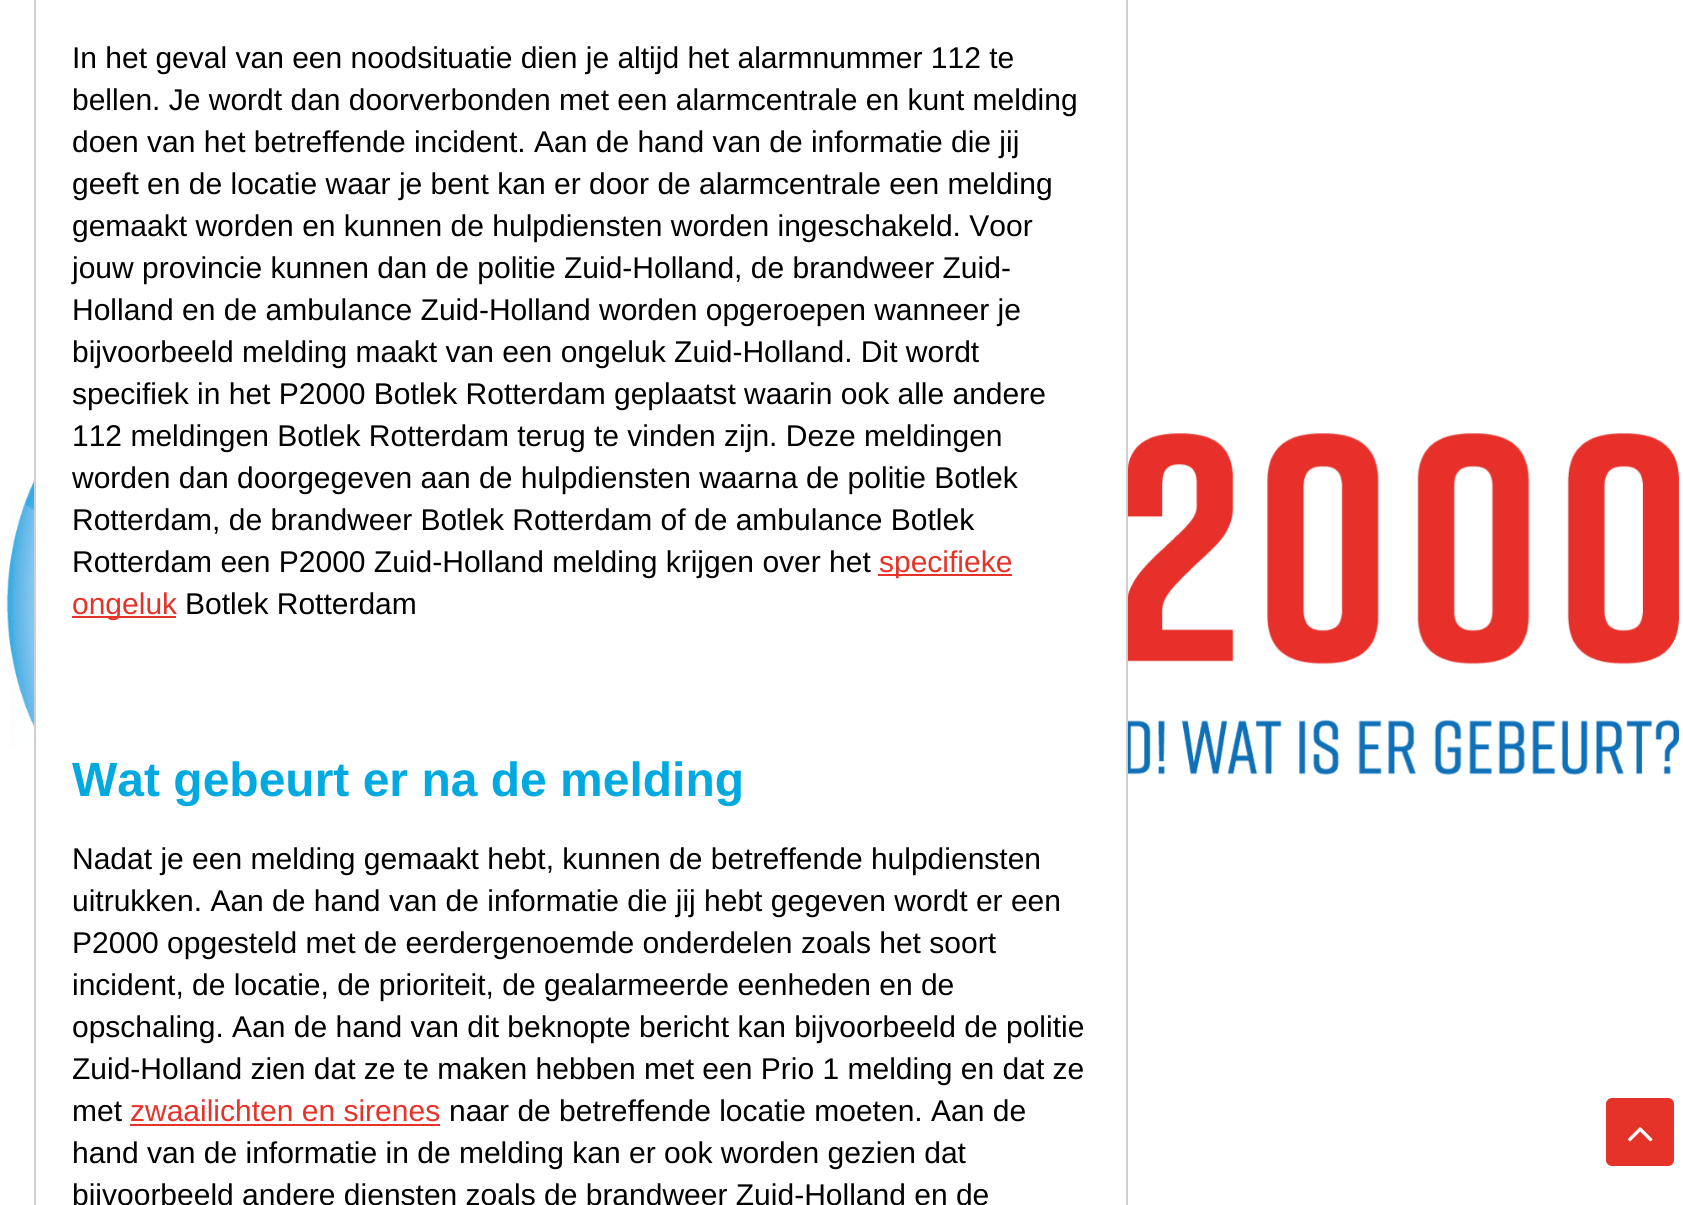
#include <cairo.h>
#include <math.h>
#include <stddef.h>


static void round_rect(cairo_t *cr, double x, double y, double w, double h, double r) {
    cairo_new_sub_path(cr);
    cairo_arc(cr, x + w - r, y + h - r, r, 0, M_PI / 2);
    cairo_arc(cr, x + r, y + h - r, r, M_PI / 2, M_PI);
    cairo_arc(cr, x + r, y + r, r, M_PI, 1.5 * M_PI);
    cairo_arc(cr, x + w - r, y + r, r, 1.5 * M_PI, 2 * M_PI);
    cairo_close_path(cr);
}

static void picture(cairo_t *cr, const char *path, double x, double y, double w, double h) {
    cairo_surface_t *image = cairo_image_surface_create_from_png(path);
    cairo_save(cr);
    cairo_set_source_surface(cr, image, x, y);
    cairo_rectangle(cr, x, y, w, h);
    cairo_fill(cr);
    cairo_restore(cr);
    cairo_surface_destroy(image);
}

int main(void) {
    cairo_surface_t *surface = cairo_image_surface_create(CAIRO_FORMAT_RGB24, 1683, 1205);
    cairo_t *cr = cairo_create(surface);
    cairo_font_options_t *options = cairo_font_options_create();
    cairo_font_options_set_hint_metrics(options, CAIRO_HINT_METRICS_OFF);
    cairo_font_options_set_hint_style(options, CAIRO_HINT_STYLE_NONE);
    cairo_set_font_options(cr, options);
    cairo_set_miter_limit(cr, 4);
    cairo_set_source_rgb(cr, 1, 1, 1);
    cairo_paint(cr);
    picture(cr, "img1.png", 6, 433, 1673, 342);
    cairo_set_source_rgb(cr, 1, 1, 1);
    cairo_rectangle(cr, 36, 433, 1090, 342);
    cairo_fill(cr);
    cairo_rectangle(cr, 35, -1, 1092, 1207);
    cairo_set_source_rgb(cr, 0.812, 0.812, 0.812);
    cairo_stroke(cr);
    cairo_select_font_face(cr, "Liberation Sans", CAIRO_FONT_SLANT_NORMAL, CAIRO_FONT_WEIGHT_NORMAL);
    cairo_set_font_size(cr, 30);
    cairo_set_source_rgb(cr, 0, 0, 0);
    cairo_move_to(cr, 72, 68);
    cairo_show_text(cr, "In het geval van een noodsituatie dien je altijd het alarmnummer 112 te");
    cairo_move_to(cr, 72, 110);
    cairo_show_text(cr, "bellen. Je wordt dan doorverbonden met een alarmcentrale en kunt melding");
    cairo_move_to(cr, 72, 152);
    cairo_show_text(cr, "doen van het betreffende incident. Aan de hand van de informatie die jij");
    cairo_move_to(cr, 72, 194);
    cairo_show_text(cr, "geeft en de locatie waar je bent kan er door de alarmcentrale een melding");
    cairo_move_to(cr, 72, 236);
    cairo_show_text(cr, "gemaakt worden en kunnen de hulpdiensten worden ingeschakeld. Voor");
    cairo_move_to(cr, 72, 278);
    cairo_show_text(cr, "jouw provincie kunnen dan de politie Zuid-Holland, de brandweer Zuid-");
    cairo_move_to(cr, 72, 320);
    cairo_show_text(cr, "Holland en de ambulance Zuid-Holland worden opgeroepen wanneer je");
    cairo_move_to(cr, 72, 362);
    cairo_show_text(cr, "bijvoorbeeld melding maakt van een ongeluk Zuid-Holland. Dit wordt");
    cairo_move_to(cr, 72, 404);
    cairo_show_text(cr, "specifiek in het P2000 Botlek Rotterdam geplaatst waarin ook alle andere");
    cairo_move_to(cr, 72, 446);
    cairo_show_text(cr, "112 meldingen Botlek Rotterdam terug te vinden zijn. Deze meldingen");
    cairo_move_to(cr, 72, 488);
    cairo_show_text(cr, "worden dan doorgegeven aan de hulpdiensten waarna de politie Botlek");
    cairo_move_to(cr, 72, 530);
    cairo_show_text(cr, "Rotterdam, de brandweer Botlek Rotterdam of de ambulance Botlek");
    cairo_move_to(cr, 72, 572);
    cairo_show_text(cr, "Rotterdam een P2000 Zuid-Holland melding krijgen over het");
    cairo_set_source_rgb(cr, 0.902, 0.2, 0.165);
    cairo_rectangle(cr, 878, 574, 134, 2);
    cairo_fill(cr);
    cairo_move_to(cr, 879, 572);
    cairo_show_text(cr, "specifieke");
    cairo_rectangle(cr, 72, 616, 104, 2);
    cairo_fill(cr);
    cairo_move_to(cr, 72, 614);
    cairo_show_text(cr, "ongeluk");
    cairo_set_source_rgb(cr, 0, 0, 0);
    cairo_move_to(cr, 185, 614);
    cairo_show_text(cr, "Botlek Rotterdam");
    cairo_select_font_face(cr, "Liberation Sans", CAIRO_FONT_SLANT_NORMAL, CAIRO_FONT_WEIGHT_BOLD);
    cairo_set_font_size(cr, 48);
    cairo_set_source_rgb(cr, 0, 0.663, 0.878);
    cairo_move_to(cr, 72, 796);
    cairo_show_text(cr, "Wat gebeurt er na de melding");
    cairo_select_font_face(cr, "Liberation Sans", CAIRO_FONT_SLANT_NORMAL, CAIRO_FONT_WEIGHT_NORMAL);
    cairo_set_font_size(cr, 30);
    cairo_set_source_rgb(cr, 0, 0, 0);
    cairo_move_to(cr, 72, 869);
    cairo_show_text(cr, "Nadat je een melding gemaakt hebt, kunnen de betreffende hulpdiensten");
    cairo_move_to(cr, 72, 911);
    cairo_show_text(cr, "uitrukken. Aan de hand van de informatie die jij hebt gegeven wordt er een");
    cairo_move_to(cr, 72, 953);
    cairo_show_text(cr, "P2000 opgesteld met de eerdergenoemde onderdelen zoals het soort");
    cairo_move_to(cr, 72, 995);
    cairo_show_text(cr, "incident, de locatie, de prioriteit, de gealarmeerde eenheden en de");
    cairo_move_to(cr, 72, 1037);
    cairo_show_text(cr, "opschaling. Aan de hand van dit beknopte bericht kan bijvoorbeeld de politie");
    cairo_move_to(cr, 72, 1079);
    cairo_show_text(cr, "Zuid-Holland zien dat ze te maken hebben met een Prio 1 melding en dat ze");
    cairo_move_to(cr, 72, 1121);
    cairo_show_text(cr, "met");
    cairo_set_source_rgb(cr, 0.902, 0.2, 0.165);
    cairo_move_to(cr, 130, 1121);
    cairo_show_text(cr, "zwaailichten en sirenes");
    cairo_rectangle(cr, 130, 1124, 310, 2);
    cairo_fill(cr);
    cairo_set_source_rgb(cr, 0, 0, 0);
    cairo_move_to(cr, 449, 1121);
    cairo_show_text(cr, "naar de betreffende locatie moeten. Aan de");
    cairo_move_to(cr, 72, 1163);
    cairo_show_text(cr, "hand van de informatie in de melding kan er ook worden gezien dat");
    cairo_move_to(cr, 72, 1205);
    cairo_show_text(cr, "bijvoorbeeld andere diensten zoals de brandweer Zuid-Holland en de");
    cairo_set_source_rgb(cr, 0.902, 0.2, 0.165);
    round_rect(cr, 1606, 1098, 68, 68, 6);
    cairo_fill(cr);
    picture(cr, "img2.png", 1627, 1127, 26, 15);
    cairo_surface_write_to_png(surface, "page.png");
    cairo_font_options_destroy(options);
    cairo_destroy(cr);
    cairo_surface_destroy(surface);
    return 0;
}
